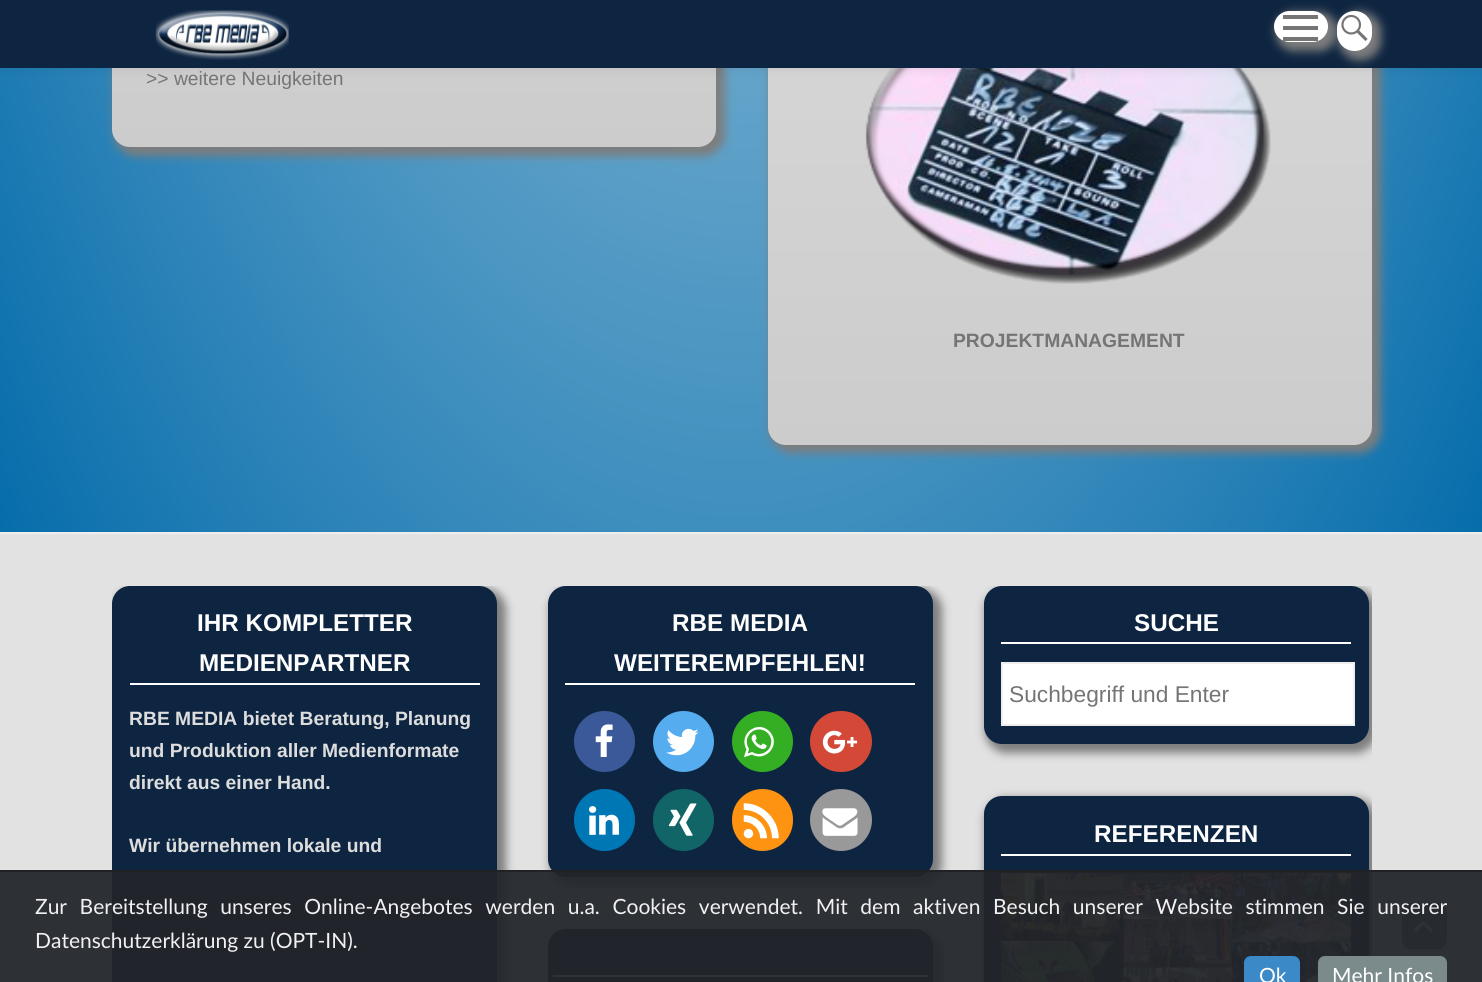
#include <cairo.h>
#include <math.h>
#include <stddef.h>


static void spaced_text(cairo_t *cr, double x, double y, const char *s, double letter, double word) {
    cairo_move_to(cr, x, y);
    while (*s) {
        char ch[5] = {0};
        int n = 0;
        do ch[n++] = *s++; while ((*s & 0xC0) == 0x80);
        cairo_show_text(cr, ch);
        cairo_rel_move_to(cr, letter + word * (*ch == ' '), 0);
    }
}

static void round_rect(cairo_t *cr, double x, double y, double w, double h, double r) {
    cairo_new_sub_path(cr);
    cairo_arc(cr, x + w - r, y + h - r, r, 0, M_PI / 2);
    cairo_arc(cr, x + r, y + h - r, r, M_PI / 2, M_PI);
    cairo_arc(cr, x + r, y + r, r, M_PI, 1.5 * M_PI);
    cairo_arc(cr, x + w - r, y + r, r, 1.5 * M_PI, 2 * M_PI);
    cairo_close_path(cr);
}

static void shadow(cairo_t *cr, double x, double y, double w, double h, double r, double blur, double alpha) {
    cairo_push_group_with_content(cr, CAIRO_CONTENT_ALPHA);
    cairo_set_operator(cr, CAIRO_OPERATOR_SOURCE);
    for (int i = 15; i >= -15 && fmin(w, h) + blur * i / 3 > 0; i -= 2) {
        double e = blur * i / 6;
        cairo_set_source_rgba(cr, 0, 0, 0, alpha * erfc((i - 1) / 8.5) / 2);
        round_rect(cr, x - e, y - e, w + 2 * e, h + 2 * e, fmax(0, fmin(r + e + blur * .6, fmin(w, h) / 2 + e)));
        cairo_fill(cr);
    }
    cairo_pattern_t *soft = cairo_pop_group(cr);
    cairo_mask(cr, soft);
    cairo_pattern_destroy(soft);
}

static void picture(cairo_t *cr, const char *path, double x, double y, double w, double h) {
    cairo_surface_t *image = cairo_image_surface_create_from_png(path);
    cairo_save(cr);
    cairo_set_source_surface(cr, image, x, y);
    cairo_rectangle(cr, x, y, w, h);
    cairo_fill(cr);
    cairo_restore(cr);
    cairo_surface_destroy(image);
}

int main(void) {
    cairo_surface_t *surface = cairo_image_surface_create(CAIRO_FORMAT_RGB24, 1482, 982);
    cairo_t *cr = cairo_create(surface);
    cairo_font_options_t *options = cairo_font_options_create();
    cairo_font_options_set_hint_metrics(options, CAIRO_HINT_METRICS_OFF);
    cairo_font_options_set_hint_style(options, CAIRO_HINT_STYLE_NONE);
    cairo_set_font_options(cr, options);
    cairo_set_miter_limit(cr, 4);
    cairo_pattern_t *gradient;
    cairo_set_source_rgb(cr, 1, 1, 1);
    cairo_paint(cr);
    gradient = cairo_pattern_create_radial(0, 0, 0, 0, 0, 1);
    cairo_pattern_set_matrix(gradient, &(cairo_matrix_t){1.0 / 1048, 0, 0, 1.0 / 2396, -1.0 * 741 / 1048, -1.0 * -1162 / 2396});
    cairo_pattern_add_color_stop_rgba(gradient, 0, 0.773, 0.871, 0.918, 1);
    cairo_pattern_add_color_stop_rgba(gradient, 0.31, 0.541, 0.733, 0.843, 1);
    cairo_pattern_add_color_stop_rgba(gradient, 1, 0.024, 0.427, 0.671, 1);
    cairo_set_source(cr, gradient);
    cairo_pattern_destroy(gradient);
    cairo_rectangle(cr, 0, 68, 1482, 464);
    cairo_fill(cr);
    cairo_set_source_rgb(cr, 0.49, 0.49, 0.49);
    shadow(cr, 114, -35, 611, 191, 21, 4.5, 1);
    gradient = cairo_pattern_create_linear(414, -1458, 414, 147);
    cairo_pattern_add_color_stop_rgba(gradient, 0.23, 0.933, 0.933, 0.933, 1);
    cairo_pattern_add_color_stop_rgba(gradient, 1, 0.8, 0.8, 0.8, 1);
    cairo_set_source(cr, gradient);
    cairo_pattern_destroy(gradient);
    round_rect(cr, 112, -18, 604, 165, 18);
    cairo_fill(cr);
    cairo_set_source_rgb(cr, 0.49, 0.49, 0.49);
    shadow(cr, 770, -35, 611, 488, 21, 4.5, 1);
    gradient = cairo_pattern_create_linear(1070, -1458, 1070, 445);
    cairo_pattern_add_color_stop_rgba(gradient, 0.23, 0.933, 0.933, 0.933, 1);
    cairo_pattern_add_color_stop_rgba(gradient, 1, 0.8, 0.8, 0.8, 1);
    cairo_set_source(cr, gradient);
    cairo_pattern_destroy(gradient);
    round_rect(cr, 768, -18, 604, 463, 18);
    cairo_fill(cr);
    picture(cr, "img3.png", 865, 68, 406, 216);
    cairo_set_source_rgb(cr, 0, 0, 0);
    shadow(cr, 0, 0, 1482, 68, 0, 6, 0.1);
    cairo_set_source_rgb(cr, 0.055, 0.145, 0.255);
    cairo_rectangle(cr, 0, 0, 1482, 68);
    cairo_fill(cr);
    picture(cr, "img1.png", 155, 10, 134, 50);
    cairo_set_source_rgb(cr, 0.49, 0.49, 0.49);
    shadow(cr, 1276, 12, 61, 39, 19.5, 4.5, 1);
    cairo_set_source_rgb(cr, 1, 1, 1);
    round_rect(cr, 1274, 11, 54, 31, 15.5);
    cairo_fill(cr);
    cairo_set_source_rgb(cr, 0.459, 0.459, 0.459);
    cairo_new_path(cr);
    cairo_move_to(cr, 1283, 41);
    cairo_line_to(cr, 1283, 37);
    cairo_line_to(cr, 1318, 37);
    cairo_line_to(cr, 1318, 41);
    cairo_close_path(cr);
    cairo_move_to(cr, 1283, 30);
    cairo_line_to(cr, 1283, 26);
    cairo_line_to(cr, 1318, 26);
    cairo_line_to(cr, 1318, 30);
    cairo_close_path(cr);
    cairo_move_to(cr, 1283, 19);
    cairo_line_to(cr, 1283, 15);
    cairo_line_to(cr, 1318, 15);
    cairo_line_to(cr, 1318, 19);
    cairo_close_path(cr);
    cairo_fill(cr);
    cairo_set_source_rgb(cr, 0.49, 0.49, 0.49);
    shadow(cr, 1339, 12, 42, 48, 21, 4.5, 1);
    cairo_set_source_rgb(cr, 1, 1, 1);
    round_rect(cr, 1337, 11, 35, 40, 17.5);
    cairo_fill(cr);
    picture(cr, "img2.png", 1341, 14, 27, 27);
    cairo_select_font_face(cr, "Liberation Sans", CAIRO_FONT_SLANT_NORMAL, CAIRO_FONT_WEIGHT_NORMAL);
    cairo_set_font_size(cr, 19.3);
    cairo_set_source_rgb(cr, 0.459, 0.459, 0.459);
    cairo_move_to(cr, 146, 85);
    cairo_show_text(cr, ">> weitere Neuigkeiten");
    cairo_select_font_face(cr, "Liberation Sans", CAIRO_FONT_SLANT_NORMAL, CAIRO_FONT_WEIGHT_BOLD);
    cairo_move_to(cr, 953, 347);
    cairo_show_text(cr, "PROJEKTMANAGEMENT");
    cairo_set_source_rgb(cr, 0.933, 0.933, 0.933);
    cairo_rectangle(cr, 0, 532, 1482, 2);
    cairo_fill(cr);
    gradient = cairo_pattern_create_linear(741, 534, 741, 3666);
    cairo_pattern_add_color_stop_rgba(gradient, 0.21, 0.886, 0.886, 0.886, 1);
    cairo_pattern_add_color_stop_rgba(gradient, 0.5, 0.859, 0.859, 0.859, 1);
    cairo_pattern_add_color_stop_rgba(gradient, 1, 0.82, 0.82, 0.82, 1);
    cairo_pattern_add_color_stop_rgba(gradient, 1, 0.996, 0.996, 0.996, 1);
    cairo_set_source(cr, gradient);
    cairo_pattern_destroy(gradient);
    cairo_rectangle(cr, 0, 534, 1482, 448);
    cairo_fill(cr);
    cairo_save(cr);
    cairo_rectangle(cr, 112, 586, 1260, 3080);
    cairo_clip(cr);
    cairo_set_source_rgb(cr, 0.49, 0.49, 0.49);
    shadow(cr, 114, 588, 392, 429, 21, 4.5, 1);
    cairo_restore(cr);
    cairo_set_source_rgb(cr, 0.055, 0.145, 0.255);
    round_rect(cr, 112, 586, 385, 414, 18);
    cairo_fill(cr);
    cairo_set_source_rgb(cr, 1, 1, 1);
    cairo_rectangle(cr, 130, 683, 350, 2);
    cairo_fill(cr);
    cairo_set_font_size(cr, 24.25);
    cairo_move_to(cr, 197, 631);
    cairo_show_text(cr, "IHR KOMPLETTER");
    cairo_move_to(cr, 199, 671);
    cairo_show_text(cr, "MEDIENPARTNER");
    cairo_set_font_size(cr, 19.3);
    cairo_set_source_rgb(cr, 0.867, 0.867, 0.867);
    cairo_move_to(cr, 129, 725);
    cairo_show_text(cr, "RBE MEDIA bietet Beratung, Planung");
    cairo_move_to(cr, 129, 757);
    cairo_show_text(cr, "und Produktion aller Medienformate");
    cairo_move_to(cr, 129, 789);
    cairo_show_text(cr, "direkt aus einer Hand.");
    cairo_move_to(cr, 129, 852);
    cairo_show_text(cr, "Wir übernehmen lokale und");
    cairo_save(cr);
    cairo_rectangle(cr, 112, 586, 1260, 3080);
    cairo_clip(cr);
    cairo_set_source_rgb(cr, 0.49, 0.49, 0.49);
    shadow(cr, 550, 588, 392, 298, 21, 4.5, 1);
    cairo_restore(cr);
    cairo_set_source_rgb(cr, 0.055, 0.145, 0.255);
    round_rect(cr, 548, 586, 385, 291, 18);
    cairo_fill(cr);
    cairo_set_source_rgb(cr, 1, 1, 1);
    cairo_rectangle(cr, 565, 683, 350, 2);
    cairo_fill(cr);
    cairo_set_font_size(cr, 24.25);
    cairo_move_to(cr, 672, 631);
    cairo_show_text(cr, "RBE MEDIA");
    cairo_move_to(cr, 614, 671);
    cairo_show_text(cr, "WEITEREMPFEHLEN!");
    cairo_set_source_rgb(cr, 0.231, 0.349, 0.596);
    cairo_new_path(cr);
    cairo_arc(cr, 604.5, 741.5, 30.5, 0, 2 * M_PI);
    cairo_fill(cr);
    picture(cr, "img4.png", 595, 724, 18, 33);
    cairo_set_source_rgb(cr, 0.333, 0.675, 0.933);
    cairo_arc(cr, 683.5, 741.5, 30.5, 0, 2 * M_PI);
    cairo_fill(cr);
    picture(cr, "img5.png", 666, 728, 33, 28);
    cairo_set_source_rgb(cr, 0.204, 0.686, 0.137);
    cairo_arc(cr, 762.5, 741.5, 30.5, 0, 2 * M_PI);
    cairo_fill(cr);
    picture(cr, "img6.png", 744, 726, 30, 32);
    cairo_set_source_rgb(cr, 0.827, 0.282, 0.212);
    round_rect(cr, 810, 711, 62, 61, 30.5);
    cairo_fill(cr);
    picture(cr, "img7.png", 822, 730, 36, 24);
    cairo_set_source_rgb(cr, 0, 0.467, 0.71);
    round_rect(cr, 574, 789, 61, 62, 30.5);
    cairo_fill(cr);
    picture(cr, "img8.png", 589, 806, 30, 29);
    cairo_set_source_rgb(cr, 0.071, 0.396, 0.404);
    round_rect(cr, 653, 789, 61, 62, 30.5);
    cairo_fill(cr);
    picture(cr, "img9.png", 668, 803, 29, 33);
    cairo_set_source_rgb(cr, 0.996, 0.576, 0.071);
    round_rect(cr, 732, 789, 61, 62, 30.5);
    cairo_fill(cr);
    picture(cr, "img10.png", 743, 803, 36, 36);
    cairo_set_source_rgb(cr, 0.6, 0.6, 0.6);
    cairo_arc(cr, 841, 820, 31, 0, 2 * M_PI);
    cairo_fill(cr);
    picture(cr, "img11.png", 822, 808, 36, 28);
    cairo_set_source_rgb(cr, 0.49, 0.49, 0.49);
    shadow(cr, 550, 931, 392, 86, 21, 4.5, 1);
    cairo_set_source_rgb(cr, 0.055, 0.145, 0.255);
    round_rect(cr, 548, 929, 385, 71, 18);
    cairo_fill(cr);
    cairo_set_source_rgb(cr, 1, 1, 1);
    cairo_rectangle(cr, 553, 975, 375, 2);
    cairo_fill(cr);
    cairo_save(cr);
    cairo_rectangle(cr, 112, 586, 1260, 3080);
    cairo_clip(cr);
    cairo_set_source_rgb(cr, 0.49, 0.49, 0.49);
    shadow(cr, 985, 588, 392, 165, 21, 4.5, 1);
    cairo_restore(cr);
    cairo_set_source_rgb(cr, 0.055, 0.145, 0.255);
    round_rect(cr, 984, 586, 385, 158, 18);
    cairo_fill(cr);
    cairo_set_source_rgb(cr, 1, 1, 1);
    cairo_rectangle(cr, 1001, 642, 350, 2);
    cairo_fill(cr);
    cairo_move_to(cr, 1134, 631);
    cairo_show_text(cr, "SUCHE");
    cairo_rectangle(cr, 1002, 663, 352, 62);
    cairo_fill_preserve(cr);
    cairo_set_source_rgb(cr, 0.933, 0.933, 0.933);
    cairo_stroke(cr);
    cairo_select_font_face(cr, "Liberation Sans", CAIRO_FONT_SLANT_NORMAL, CAIRO_FONT_WEIGHT_NORMAL);
    cairo_set_font_size(cr, 22.75);
    cairo_set_source_rgb(cr, 0.459, 0.459, 0.459);
    cairo_move_to(cr, 1009, 702);
    cairo_show_text(cr, "Suchbegriff und Enter");
    cairo_save(cr);
    cairo_rectangle(cr, 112, 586, 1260, 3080);
    cairo_clip(cr);
    cairo_set_source_rgb(cr, 0.49, 0.49, 0.49);
    shadow(cr, 985, 798, 392, 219, 21, 4.5, 1);
    cairo_restore(cr);
    cairo_set_source_rgb(cr, 0.055, 0.145, 0.255);
    round_rect(cr, 984, 796, 385, 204, 18);
    cairo_fill(cr);
    cairo_set_source_rgb(cr, 1, 1, 1);
    cairo_rectangle(cr, 1001, 854, 350, 2);
    cairo_fill(cr);
    cairo_select_font_face(cr, "Liberation Sans", CAIRO_FONT_SLANT_NORMAL, CAIRO_FONT_WEIGHT_BOLD);
    cairo_set_font_size(cr, 24.25);
    cairo_move_to(cr, 1094, 842);
    cairo_show_text(cr, "REFERENZEN");
    picture(cr, "img12.png", 1001, 873, 350, 109);
    cairo_set_source_rgb(cr, 0.443, 0.443, 0.443);
    round_rect(cr, 1402, 903, 45, 46, 9);
    cairo_fill(cr);
    cairo_set_source_rgb(cr, 0.945, 0.945, 0.945);
    cairo_new_path(cr);
    cairo_move_to(cr, 1413.5, 930);
    cairo_line_to(cr, 1423.5, 920.5);
    cairo_line_to(cr, 1433, 930);
    cairo_line_to(cr, 1431, 932.5);
    cairo_line_to(cr, 1423.5, 924.5);
    cairo_line_to(cr, 1416, 932.5);
    cairo_close_path(cr);
    cairo_fill(cr);
    cairo_set_source_rgba(cr, 0.196, 0.227, 0.271, 0.7);
    cairo_rectangle(cr, 0, 872, 1482, 110);
    cairo_fill(cr);
    cairo_set_source_rgb(cr, 0.125, 0.133, 0.149);
    cairo_rectangle(cr, 0, 870, 1482, 2);
    cairo_fill(cr);
    cairo_set_source_rgba(cr, 0.125, 0.133, 0.149, 0.8);
    cairo_rectangle(cr, 0, 872, 1482, 110);
    cairo_fill(cr);
    cairo_select_font_face(cr, "Lato", CAIRO_FONT_SLANT_NORMAL, CAIRO_FONT_WEIGHT_NORMAL);
    cairo_set_font_size(cr, 21);
    cairo_set_source_rgb(cr, 0.945, 0.945, 0.953);
    spaced_text(cr, 35, 914, "Zur Bereitstellung unseres Online-Angebotes werden u.a. Cookies verwendet. Mit dem aktiven Besuch unserer Website stimmen Sie unserer", 0, 7.25);
    cairo_move_to(cr, 35, 948);
    cairo_show_text(cr, "Datenschutzerklärung zu (OPT-IN).");
    cairo_set_source_rgb(cr, 0.231, 0.537, 0.78);
    cairo_new_path(cr);
    cairo_move_to(cr, 1251, 956);
    cairo_line_to(cr, 1293, 956);
    cairo_curve_to(cr, 1297, 956, 1300, 959, 1300, 963);
    cairo_line_to(cr, 1300, 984);
    cairo_line_to(cr, 1244, 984);
    cairo_line_to(cr, 1244, 963);
    cairo_curve_to(cr, 1244, 959, 1247, 956, 1251, 956);
    cairo_close_path(cr);
    cairo_fill(cr);
    cairo_set_source_rgb(cr, 1, 1, 1);
    cairo_move_to(cr, 1259, 983);
    cairo_show_text(cr, "Ok");
    cairo_set_source_rgb(cr, 0.482, 0.541, 0.545);
    cairo_new_path(cr);
    cairo_move_to(cr, 1325, 956);
    cairo_line_to(cr, 1440, 956);
    cairo_curve_to(cr, 1444, 956, 1447, 959, 1447, 963);
    cairo_line_to(cr, 1447, 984);
    cairo_line_to(cr, 1318, 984);
    cairo_line_to(cr, 1318, 963);
    cairo_curve_to(cr, 1318, 959, 1321, 956, 1325, 956);
    cairo_close_path(cr);
    cairo_fill(cr);
    cairo_set_source_rgb(cr, 1, 1, 1);
    cairo_move_to(cr, 1332, 983);
    cairo_show_text(cr, "Mehr Infos");
    cairo_surface_write_to_png(surface, "page.png");
    cairo_font_options_destroy(options);
    cairo_destroy(cr);
    cairo_surface_destroy(surface);
    return 0;
}
